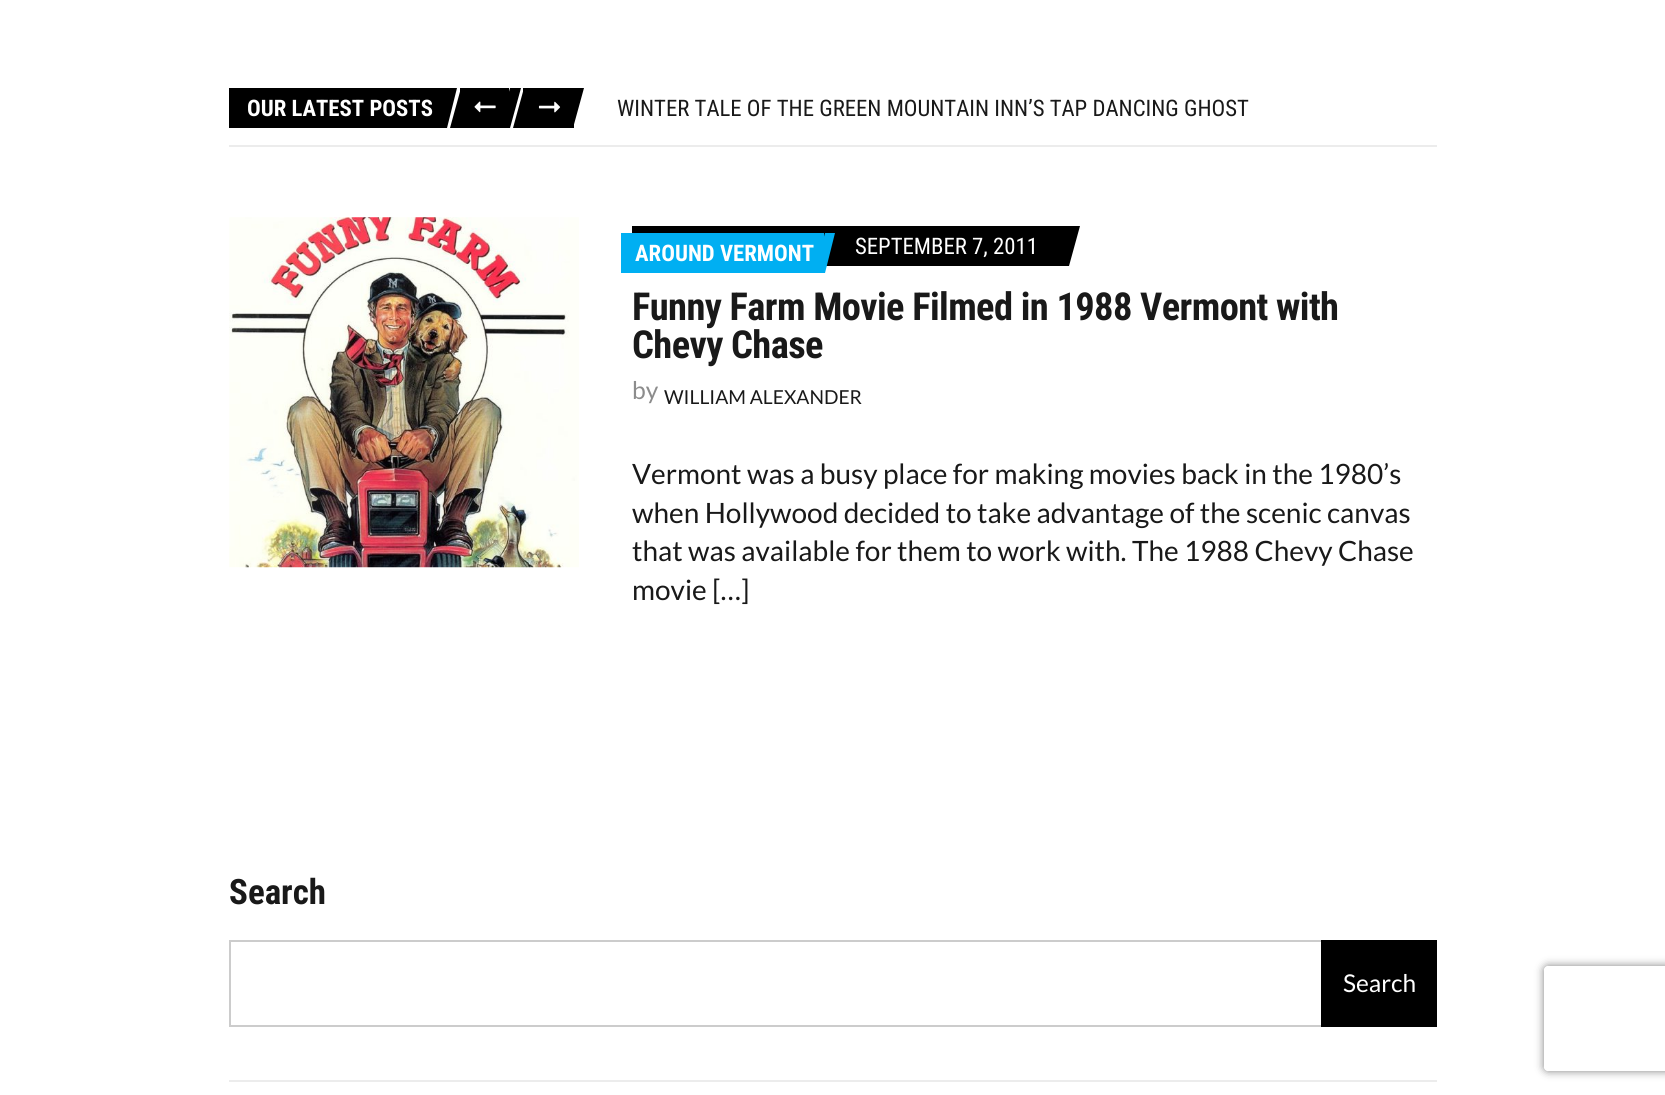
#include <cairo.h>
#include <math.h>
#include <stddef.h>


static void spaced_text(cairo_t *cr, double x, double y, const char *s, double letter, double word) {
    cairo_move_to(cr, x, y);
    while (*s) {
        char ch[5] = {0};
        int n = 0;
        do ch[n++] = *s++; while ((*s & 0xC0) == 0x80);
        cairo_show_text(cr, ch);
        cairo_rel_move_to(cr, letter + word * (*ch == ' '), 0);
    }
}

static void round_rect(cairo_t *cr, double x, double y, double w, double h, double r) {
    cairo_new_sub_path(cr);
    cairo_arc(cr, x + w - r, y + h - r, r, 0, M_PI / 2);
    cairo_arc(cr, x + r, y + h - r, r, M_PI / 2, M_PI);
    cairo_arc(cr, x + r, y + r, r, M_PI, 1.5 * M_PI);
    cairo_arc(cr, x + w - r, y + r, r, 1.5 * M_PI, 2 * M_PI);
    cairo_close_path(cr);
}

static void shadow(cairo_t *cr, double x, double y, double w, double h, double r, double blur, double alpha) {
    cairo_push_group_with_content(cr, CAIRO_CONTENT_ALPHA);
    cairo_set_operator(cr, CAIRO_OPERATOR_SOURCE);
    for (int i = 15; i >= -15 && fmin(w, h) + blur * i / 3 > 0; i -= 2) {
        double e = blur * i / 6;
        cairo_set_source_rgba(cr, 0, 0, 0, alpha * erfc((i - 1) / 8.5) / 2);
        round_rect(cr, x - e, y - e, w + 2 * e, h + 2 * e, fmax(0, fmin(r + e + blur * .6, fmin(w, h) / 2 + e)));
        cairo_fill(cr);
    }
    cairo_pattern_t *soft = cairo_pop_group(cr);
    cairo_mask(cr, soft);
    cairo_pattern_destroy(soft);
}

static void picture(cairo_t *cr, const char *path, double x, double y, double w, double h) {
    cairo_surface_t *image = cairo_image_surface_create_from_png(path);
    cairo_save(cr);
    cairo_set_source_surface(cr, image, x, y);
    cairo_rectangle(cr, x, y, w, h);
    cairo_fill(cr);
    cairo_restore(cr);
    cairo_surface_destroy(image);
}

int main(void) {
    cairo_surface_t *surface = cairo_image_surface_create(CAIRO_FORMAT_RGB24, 1665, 1095);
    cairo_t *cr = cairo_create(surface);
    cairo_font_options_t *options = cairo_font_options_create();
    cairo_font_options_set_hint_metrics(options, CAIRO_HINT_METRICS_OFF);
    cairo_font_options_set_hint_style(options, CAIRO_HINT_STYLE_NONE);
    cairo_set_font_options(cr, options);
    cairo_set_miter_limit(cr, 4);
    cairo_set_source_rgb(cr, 1, 1, 1);
    cairo_paint(cr);
    cairo_set_source_rgb(cr, 0.922, 0.922, 0.922);
    cairo_rectangle(cr, 229, 145, 1208, 2);
    cairo_fill(cr);
    cairo_set_source_rgb(cr, 0, 0, 0);
    cairo_rectangle(cr, 229, 88, 228, 40);
    cairo_fill(cr);
    cairo_select_font_face(cr, "Roboto Condensed", CAIRO_FONT_SLANT_NORMAL, CAIRO_FONT_WEIGHT_BOLD);
    cairo_set_font_size(cr, 22.75);
    cairo_set_source_rgb(cr, 1, 1, 1);
    cairo_move_to(cr, 247, 116);
    cairo_show_text(cr, "OUR LATEST POSTS");
    cairo_new_path(cr);
    cairo_move_to(cr, 457, 88);
    cairo_line_to(cr, 468, 88);
    cairo_line_to(cr, 457, 128);
    cairo_line_to(cr, 447, 128);
    cairo_close_path(cr);
    cairo_fill(cr);
    cairo_set_source_rgb(cr, 0, 0, 0);
    cairo_rectangle(cr, 460, 88, 49, 40);
    cairo_fill(cr);
    cairo_new_path(cr);
    cairo_move_to(cr, 461, 88);
    cairo_line_to(cr, 471, 88);
    cairo_line_to(cr, 461, 128);
    cairo_line_to(cr, 450, 128);
    cairo_close_path(cr);
    cairo_fill(cr);
    picture(cr, "img1.png", 474, 101, 22, 12);
    cairo_new_path(cr);
    cairo_move_to(cr, 510, 88);
    cairo_line_to(cr, 521, 88);
    cairo_line_to(cr, 510, 128);
    cairo_line_to(cr, 499, 128);
    cairo_close_path(cr);
    cairo_fill(cr);
    cairo_rectangle(cr, 523, 88, 51, 40);
    cairo_fill(cr);
    cairo_new_path(cr);
    cairo_move_to(cr, 524, 88);
    cairo_line_to(cr, 535, 88);
    cairo_line_to(cr, 524, 128);
    cairo_line_to(cr, 513, 128);
    cairo_close_path(cr);
    cairo_fill(cr);
    picture(cr, "img2.png", 538, 101, 23, 12);
    cairo_new_path(cr);
    cairo_move_to(cr, 574, 88);
    cairo_line_to(cr, 584, 88);
    cairo_line_to(cr, 573, 128);
    cairo_line_to(cr, 563, 128);
    cairo_close_path(cr);
    cairo_fill(cr);
    cairo_select_font_face(cr, "Roboto Condensed", CAIRO_FONT_SLANT_NORMAL, CAIRO_FONT_WEIGHT_NORMAL);
    cairo_set_source_rgb(cr, 0.098, 0.098, 0.098);
    cairo_move_to(cr, 617, 116);
    cairo_show_text(cr, "WINTER TALE OF THE GREEN MOUNTAIN INN’S TAP DANCING GHOST");
    picture(cr, "img3.png", 229, 217, 350, 351);
    cairo_set_source_rgb(cr, 0, 0, 0);
    cairo_rectangle(cr, 632, 226, 437, 40);
    cairo_fill(cr);
    cairo_set_source_rgb(cr, 0, 0.686, 0.949);
    cairo_rectangle(cr, 621, 233, 203, 40);
    cairo_fill(cr);
    cairo_select_font_face(cr, "Roboto Condensed", CAIRO_FONT_SLANT_NORMAL, CAIRO_FONT_WEIGHT_BOLD);
    cairo_set_source_rgb(cr, 1, 1, 1);
    cairo_move_to(cr, 635, 261);
    cairo_show_text(cr, "AROUND VERMONT");
    cairo_set_source_rgb(cr, 0, 0.686, 0.949);
    cairo_new_path(cr);
    cairo_move_to(cr, 825, 233);
    cairo_line_to(cr, 835, 233);
    cairo_line_to(cr, 825, 273);
    cairo_line_to(cr, 814, 273);
    cairo_close_path(cr);
    cairo_fill(cr);
    cairo_select_font_face(cr, "Roboto Condensed", CAIRO_FONT_SLANT_NORMAL, CAIRO_FONT_WEIGHT_NORMAL);
    cairo_set_source_rgb(cr, 1, 1, 1);
    cairo_move_to(cr, 855, 254);
    cairo_show_text(cr, "SEPTEMBER 7, 2011");
    cairo_set_source_rgb(cr, 0, 0, 0);
    cairo_new_path(cr);
    cairo_move_to(cr, 1069, 226);
    cairo_line_to(cr, 1080, 226);
    cairo_line_to(cr, 1069, 266);
    cairo_line_to(cr, 1058, 266);
    cairo_close_path(cr);
    cairo_fill(cr);
    cairo_select_font_face(cr, "Roboto Condensed", CAIRO_FONT_SLANT_NORMAL, CAIRO_FONT_WEIGHT_BOLD);
    cairo_set_font_size(cr, 38.5);
    cairo_set_source_rgb(cr, 0.098, 0.098, 0.098);
    spaced_text(cr, 632, 320, "Funny Farm Movie Filmed in 1988 Vermont with", -0.6, 0);
    spaced_text(cr, 632, 358, "Chevy Chase", -0.6, 0);
    cairo_select_font_face(cr, "Lato", CAIRO_FONT_SLANT_NORMAL, CAIRO_FONT_WEIGHT_NORMAL);
    cairo_set_font_size(cr, 24.5);
    cairo_set_source_rgb(cr, 0.549, 0.549, 0.549);
    cairo_move_to(cr, 632, 399);
    cairo_show_text(cr, "by");
    cairo_set_font_size(cr, 19.25);
    cairo_set_source_rgb(cr, 0.098, 0.098, 0.098);
    cairo_move_to(cr, 664, 404);
    cairo_show_text(cr, "WILLIAM ALEXANDER");
    cairo_set_font_size(cr, 28);
    cairo_move_to(cr, 632, 484);
    cairo_show_text(cr, "Vermont was a busy place for making movies back in the 1980’s");
    cairo_move_to(cr, 632, 523);
    cairo_show_text(cr, "when Hollywood decided to take advantage of the scenic canvas");
    cairo_move_to(cr, 632, 561);
    cairo_show_text(cr, "that was available for them to work with. The 1988 Chevy Chase");
    cairo_move_to(cr, 632, 600);
    cairo_show_text(cr, "movie […]");
    cairo_set_source_rgb(cr, 0.922, 0.922, 0.922);
    cairo_rectangle(cr, 229, 1080, 1208, 2);
    cairo_fill(cr);
    cairo_select_font_face(cr, "Roboto Condensed", CAIRO_FONT_SLANT_NORMAL, CAIRO_FONT_WEIGHT_BOLD);
    cairo_set_font_size(cr, 35);
    cairo_set_source_rgb(cr, 0.098, 0.098, 0.098);
    cairo_move_to(cr, 229, 904);
    cairo_show_text(cr, "Search");
    cairo_rectangle(cr, 230, 941, 1206, 85);
    cairo_set_source_rgb(cr, 0.8, 0.8, 0.8);
    cairo_stroke(cr);
    cairo_set_source_rgb(cr, 0, 0, 0);
    cairo_rectangle(cr, 1321, 940, 116, 87);
    cairo_fill(cr);
    cairo_select_font_face(cr, "Lato", CAIRO_FONT_SLANT_NORMAL, CAIRO_FONT_WEIGHT_NORMAL);
    cairo_set_font_size(cr, 24.5);
    cairo_set_source_rgb(cr, 1, 1, 1);
    cairo_move_to(cr, 1343, 992);
    cairo_show_text(cr, "Search");
    cairo_save(cr);
    cairo_set_fill_rule(cr, CAIRO_FILL_RULE_EVEN_ODD);
    cairo_new_path(cr);
    cairo_move_to(cr, 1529, 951);
    cairo_line_to(cr, 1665, 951);
    cairo_line_to(cr, 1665, 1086);
    cairo_line_to(cr, 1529, 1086);
    cairo_close_path(cr);
    cairo_move_to(cr, 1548, 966);
    cairo_line_to(cr, 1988, 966);
    cairo_curve_to(cr, 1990, 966, 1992, 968, 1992, 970);
    cairo_line_to(cr, 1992, 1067);
    cairo_curve_to(cr, 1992, 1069, 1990, 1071, 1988, 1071);
    cairo_line_to(cr, 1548, 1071);
    cairo_curve_to(cr, 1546, 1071, 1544, 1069, 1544, 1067);
    cairo_line_to(cr, 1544, 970);
    cairo_curve_to(cr, 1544, 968, 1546, 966, 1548, 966);
    cairo_close_path(cr);
    cairo_clip(cr);
    cairo_set_source_rgb(cr, 0.502, 0.502, 0.502);
    shadow(cr, 1544, 966, 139, 105, 4, 4.5, 1);
    cairo_restore(cr);
    cairo_surface_write_to_png(surface, "page.png");
    cairo_font_options_destroy(options);
    cairo_destroy(cr);
    cairo_surface_destroy(surface);
    return 0;
}
